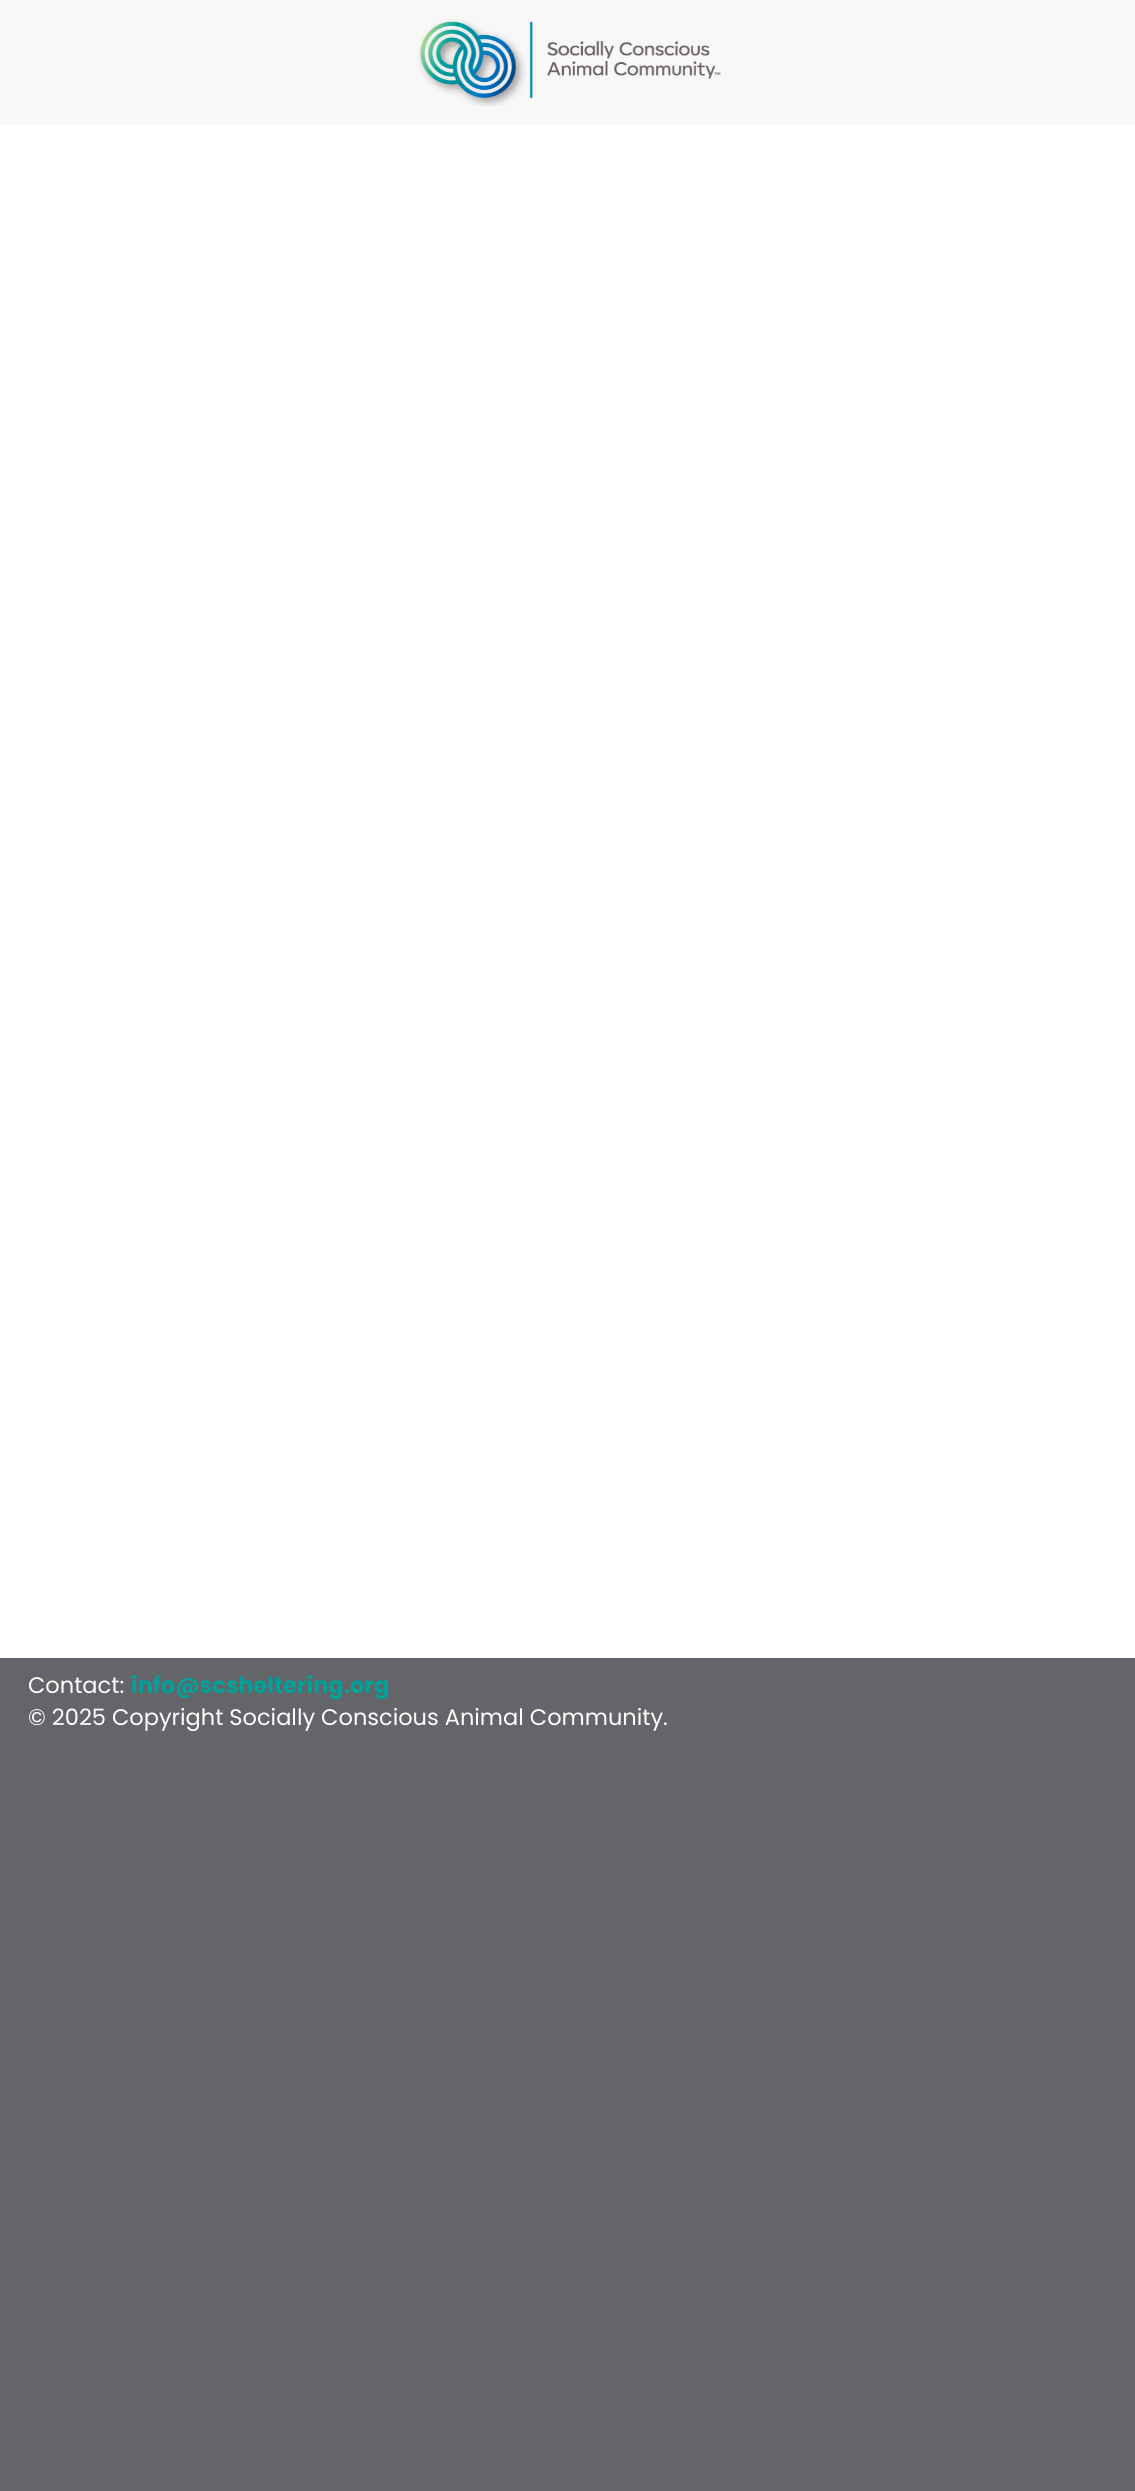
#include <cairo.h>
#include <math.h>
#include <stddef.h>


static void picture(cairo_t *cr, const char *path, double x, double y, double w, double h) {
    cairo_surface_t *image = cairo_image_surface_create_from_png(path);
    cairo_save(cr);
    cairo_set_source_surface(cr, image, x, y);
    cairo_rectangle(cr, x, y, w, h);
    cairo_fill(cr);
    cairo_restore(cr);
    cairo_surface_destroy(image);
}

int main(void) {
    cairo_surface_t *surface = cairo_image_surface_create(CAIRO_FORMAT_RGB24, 1135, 2491);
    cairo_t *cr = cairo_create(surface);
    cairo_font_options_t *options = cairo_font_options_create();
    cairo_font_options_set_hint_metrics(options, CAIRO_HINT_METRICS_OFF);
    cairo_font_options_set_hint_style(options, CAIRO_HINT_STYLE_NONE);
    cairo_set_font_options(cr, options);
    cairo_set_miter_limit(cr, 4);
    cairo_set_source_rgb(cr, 1, 1, 1);
    cairo_paint(cr);
    cairo_set_source_rgb(cr, 0.969, 0.969, 0.969);
    cairo_rectangle(cr, 0, 0, 1135, 125);
    cairo_fill(cr);
    picture(cr, "img1.png", 418, 19, 303, 87);
    cairo_set_source_rgb(cr, 0.388, 0.396, 0.412);
    cairo_rectangle(cr, 0, 1658, 1135, 833);
    cairo_fill(cr);
    cairo_select_font_face(cr, "Poppins", CAIRO_FONT_SLANT_NORMAL, CAIRO_FONT_WEIGHT_NORMAL);
    cairo_set_font_size(cr, 22.5);
    cairo_set_source_rgb(cr, 1, 1, 1);
    cairo_move_to(cr, 28, 1693);
    cairo_show_text(cr, "Contact:");
    cairo_select_font_face(cr, "Poppins", CAIRO_FONT_SLANT_NORMAL, CAIRO_FONT_WEIGHT_BOLD);
    cairo_set_source_rgb(cr, 0, 0.631, 0.608);
    cairo_move_to(cr, 131, 1693);
    cairo_show_text(cr, "info@scsheltering.org");
    cairo_select_font_face(cr, "Poppins", CAIRO_FONT_SLANT_NORMAL, CAIRO_FONT_WEIGHT_NORMAL);
    cairo_set_source_rgb(cr, 1, 1, 1);
    cairo_move_to(cr, 28, 1725);
    cairo_show_text(cr, "© 2025 Copyright Socially Conscious Animal Community.");
    cairo_surface_write_to_png(surface, "page.png");
    cairo_font_options_destroy(options);
    cairo_destroy(cr);
    cairo_surface_destroy(surface);
    return 0;
}
